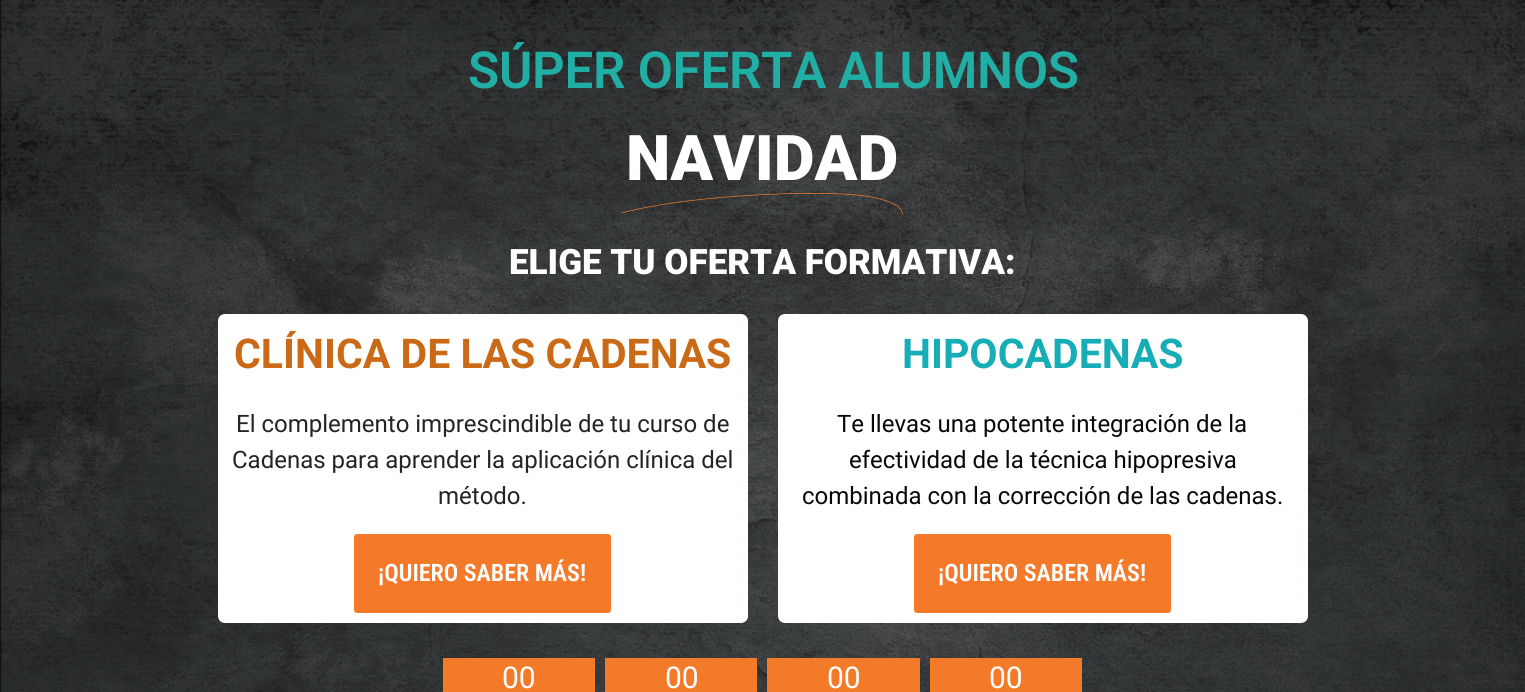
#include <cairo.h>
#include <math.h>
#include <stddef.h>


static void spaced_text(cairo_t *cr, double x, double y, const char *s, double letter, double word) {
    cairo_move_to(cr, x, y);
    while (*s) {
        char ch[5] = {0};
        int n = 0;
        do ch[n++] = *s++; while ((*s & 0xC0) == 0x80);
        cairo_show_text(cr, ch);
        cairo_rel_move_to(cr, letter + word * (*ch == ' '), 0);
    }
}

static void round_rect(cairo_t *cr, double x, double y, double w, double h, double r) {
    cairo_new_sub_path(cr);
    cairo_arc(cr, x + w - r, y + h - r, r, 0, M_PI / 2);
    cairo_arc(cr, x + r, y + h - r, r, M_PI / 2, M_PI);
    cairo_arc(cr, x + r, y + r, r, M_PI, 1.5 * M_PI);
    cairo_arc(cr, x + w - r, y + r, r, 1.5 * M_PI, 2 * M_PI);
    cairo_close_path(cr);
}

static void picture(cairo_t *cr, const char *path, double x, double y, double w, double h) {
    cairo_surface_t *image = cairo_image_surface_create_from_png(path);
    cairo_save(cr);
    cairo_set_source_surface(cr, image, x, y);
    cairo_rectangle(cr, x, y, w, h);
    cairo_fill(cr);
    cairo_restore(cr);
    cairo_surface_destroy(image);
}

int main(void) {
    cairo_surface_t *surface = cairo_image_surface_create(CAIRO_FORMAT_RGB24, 1525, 692);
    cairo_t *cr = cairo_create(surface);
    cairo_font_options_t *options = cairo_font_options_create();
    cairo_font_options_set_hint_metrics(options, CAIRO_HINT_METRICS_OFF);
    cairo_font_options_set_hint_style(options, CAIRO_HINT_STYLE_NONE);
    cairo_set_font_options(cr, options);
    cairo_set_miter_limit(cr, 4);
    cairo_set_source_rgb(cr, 1, 1, 1);
    cairo_paint(cr);
    picture(cr, "img1.png", 0, 0, 1525, 692);
    cairo_select_font_face(cr, "Roboto SemiBold", CAIRO_FONT_SLANT_NORMAL, CAIRO_FONT_WEIGHT_NORMAL);
    cairo_set_font_size(cr, 51);
    cairo_set_source_rgb(cr, 0.129, 0.686, 0.647);
    spaced_text(cr, 468, 88, "SÚPER OFERTA ALUMNOS", -0.25, 0);
    cairo_select_font_face(cr, "Roboto Black", CAIRO_FONT_SLANT_NORMAL, CAIRO_FONT_WEIGHT_NORMAL);
    cairo_set_font_size(cr, 63);
    cairo_set_source_rgb(cr, 1, 1, 1);
    cairo_move_to(cr, 626, 180);
    cairo_show_text(cr, "NAVIDAD");
    cairo_new_path(cr);
    cairo_move_to(cr, 621.5, 213);
    cairo_curve_to(cr, 680.5, 197, 792, 190.5, 851.5, 194.5);
    cairo_curve_to(cr, 876, 196, 902.5, 203.5, 902.5, 214);
    cairo_set_source_rgb(cr, 0.957, 0.478, 0.161);
    cairo_set_line_width(cr, 0.7);
    cairo_stroke(cr);
    cairo_set_font_size(cr, 35);
    cairo_set_source_rgb(cr, 1, 1, 1);
    cairo_move_to(cr, 509, 274);
    cairo_show_text(cr, "ELIGE TU OFERTA FORMATIVA:");
    round_rect(cr, 218, 314, 530, 309, 7);
    cairo_fill(cr);
    cairo_select_font_face(cr, "Roboto", CAIRO_FONT_SLANT_NORMAL, CAIRO_FONT_WEIGHT_BOLD);
    cairo_set_font_size(cr, 41);
    cairo_set_source_rgb(cr, 0.792, 0.412, 0.086);
    cairo_move_to(cr, 234, 368);
    cairo_show_text(cr, "CLÍNICA DE LAS CADENAS");
    cairo_select_font_face(cr, "Roboto", CAIRO_FONT_SLANT_NORMAL, CAIRO_FONT_WEIGHT_NORMAL);
    cairo_set_font_size(cr, 24);
    cairo_set_source_rgb(cr, 0.145, 0.141, 0.141);
    cairo_move_to(cr, 236, 432);
    cairo_show_text(cr, "El complemento imprescindible de tu curso de");
    cairo_move_to(cr, 232, 468);
    cairo_show_text(cr, "Cadenas para aprender la aplicación clínica del");
    cairo_move_to(cr, 438, 504);
    cairo_show_text(cr, "método.");
    cairo_set_source_rgb(cr, 0.957, 0.478, 0.161);
    round_rect(cr, 354, 534, 257, 79, 3);
    cairo_fill(cr);
    cairo_select_font_face(cr, "Roboto Condensed SemiBold", CAIRO_FONT_SLANT_NORMAL, CAIRO_FONT_WEIGHT_NORMAL);
    cairo_set_source_rgb(cr, 1, 1, 1);
    cairo_move_to(cr, 378, 581);
    cairo_show_text(cr, "¡QUIERO SABER MÁS!");
    round_rect(cr, 778, 314, 530, 309, 7);
    cairo_fill(cr);
    cairo_select_font_face(cr, "Roboto", CAIRO_FONT_SLANT_NORMAL, CAIRO_FONT_WEIGHT_BOLD);
    cairo_set_font_size(cr, 41);
    cairo_set_source_rgb(cr, 0.09, 0.678, 0.718);
    cairo_move_to(cr, 902, 368);
    cairo_show_text(cr, "HIPOCADENAS");
    cairo_select_font_face(cr, "Roboto", CAIRO_FONT_SLANT_NORMAL, CAIRO_FONT_WEIGHT_NORMAL);
    cairo_set_font_size(cr, 24);
    cairo_set_source_rgb(cr, 0.031, 0.039, 0.039);
    cairo_move_to(cr, 837, 432);
    cairo_show_text(cr, "Te llevas una potente integración de la");
    cairo_move_to(cr, 849, 468);
    cairo_show_text(cr, "efectividad de la técnica hipopresiva");
    cairo_move_to(cr, 802, 504);
    cairo_show_text(cr, "combinada con la corrección de las cadenas.");
    cairo_set_source_rgb(cr, 0.957, 0.478, 0.161);
    round_rect(cr, 914, 534, 257, 79, 3);
    cairo_fill(cr);
    cairo_select_font_face(cr, "Roboto Condensed SemiBold", CAIRO_FONT_SLANT_NORMAL, CAIRO_FONT_WEIGHT_NORMAL);
    cairo_set_source_rgb(cr, 1, 1, 1);
    cairo_move_to(cr, 938, 581);
    cairo_show_text(cr, "¡QUIERO SABER MÁS!");
    cairo_set_source_rgb(cr, 0.953, 0.478, 0.161);
    cairo_rectangle(cr, 443, 658, 152, 34);
    cairo_fill(cr);
    cairo_select_font_face(cr, "Roboto", CAIRO_FONT_SLANT_NORMAL, CAIRO_FONT_WEIGHT_NORMAL);
    cairo_set_font_size(cr, 30);
    cairo_set_source_rgb(cr, 1, 1, 1);
    cairo_move_to(cr, 502, 688);
    cairo_show_text(cr, "00");
    cairo_set_source_rgb(cr, 0.953, 0.478, 0.161);
    cairo_rectangle(cr, 605, 658, 152, 34);
    cairo_fill(cr);
    cairo_set_source_rgb(cr, 1, 1, 1);
    cairo_move_to(cr, 665, 688);
    cairo_show_text(cr, "00");
    cairo_set_source_rgb(cr, 0.953, 0.478, 0.161);
    cairo_rectangle(cr, 767, 658, 153, 34);
    cairo_fill(cr);
    cairo_set_source_rgb(cr, 1, 1, 1);
    cairo_move_to(cr, 827, 688);
    cairo_show_text(cr, "00");
    cairo_set_source_rgb(cr, 0.953, 0.478, 0.161);
    cairo_rectangle(cr, 930, 658, 152, 34);
    cairo_fill(cr);
    cairo_set_source_rgb(cr, 1, 1, 1);
    cairo_move_to(cr, 989, 688);
    cairo_show_text(cr, "00");
    cairo_surface_write_to_png(surface, "page.png");
    cairo_font_options_destroy(options);
    cairo_destroy(cr);
    cairo_surface_destroy(surface);
    return 0;
}
